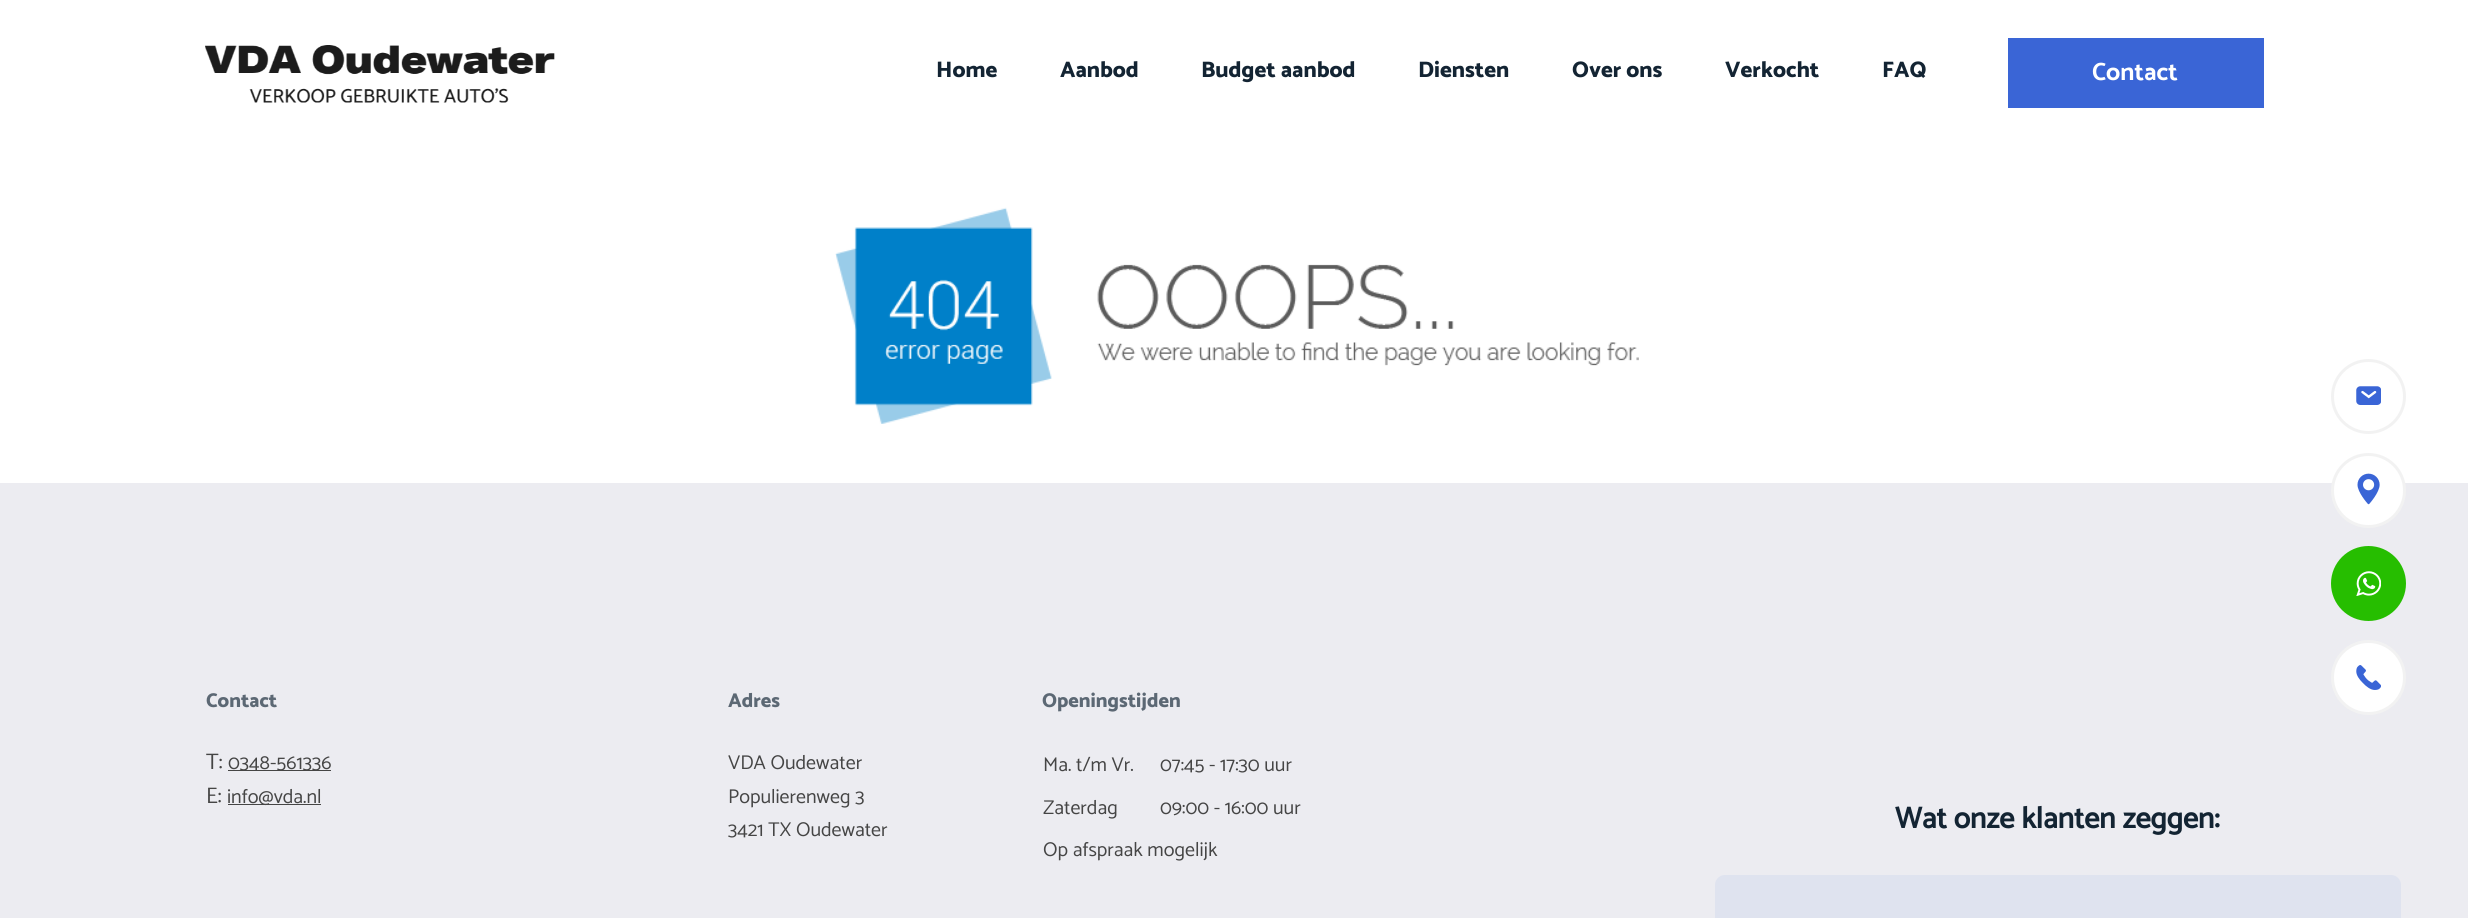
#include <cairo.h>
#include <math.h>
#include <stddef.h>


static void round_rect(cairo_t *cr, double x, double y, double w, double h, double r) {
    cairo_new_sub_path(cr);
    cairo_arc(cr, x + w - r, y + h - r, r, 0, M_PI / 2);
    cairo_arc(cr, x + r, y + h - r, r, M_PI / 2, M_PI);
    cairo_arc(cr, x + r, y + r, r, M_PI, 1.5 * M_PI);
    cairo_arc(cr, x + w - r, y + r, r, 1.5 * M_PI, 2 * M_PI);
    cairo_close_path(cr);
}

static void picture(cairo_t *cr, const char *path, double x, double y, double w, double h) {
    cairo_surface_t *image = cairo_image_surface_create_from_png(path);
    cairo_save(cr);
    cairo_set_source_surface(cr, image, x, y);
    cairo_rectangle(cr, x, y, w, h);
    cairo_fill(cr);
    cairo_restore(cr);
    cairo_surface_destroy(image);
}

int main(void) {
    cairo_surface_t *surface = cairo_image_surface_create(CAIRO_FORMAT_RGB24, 2468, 918);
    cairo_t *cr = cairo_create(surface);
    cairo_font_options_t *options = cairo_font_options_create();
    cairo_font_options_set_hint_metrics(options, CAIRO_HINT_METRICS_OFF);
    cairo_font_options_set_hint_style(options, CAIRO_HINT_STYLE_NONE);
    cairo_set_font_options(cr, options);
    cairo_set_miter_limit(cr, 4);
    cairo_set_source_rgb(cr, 1, 1, 1);
    cairo_paint(cr);
    picture(cr, "img1.png", 205, 45, 350, 58);
    cairo_select_font_face(cr, "Catamaran ExtraBold", CAIRO_FONT_SLANT_NORMAL, CAIRO_FONT_WEIGHT_NORMAL);
    cairo_set_font_size(cr, 22.5);
    cairo_set_source_rgb(cr, 0.075, 0.141, 0.2);
    cairo_move_to(cr, 936, 77);
    cairo_show_text(cr, "Home");
    cairo_move_to(cr, 1060, 77);
    cairo_show_text(cr, "Aanbod");
    cairo_move_to(cr, 1201, 77);
    cairo_show_text(cr, "Budget aanbod");
    cairo_move_to(cr, 1418, 77);
    cairo_show_text(cr, "Diensten");
    cairo_move_to(cr, 1572, 77);
    cairo_show_text(cr, "Over ons");
    cairo_move_to(cr, 1725, 77);
    cairo_show_text(cr, "Verkocht");
    cairo_move_to(cr, 1882, 77);
    cairo_show_text(cr, "FAQ");
    cairo_set_source_rgb(cr, 0.227, 0.396, 0.839);
    cairo_rectangle(cr, 2008, 38, 256, 70);
    cairo_fill(cr);
    cairo_select_font_face(cr, "Catamaran", CAIRO_FONT_SLANT_NORMAL, CAIRO_FONT_WEIGHT_BOLD);
    cairo_set_font_size(cr, 25);
    cairo_set_source_rgb(cr, 1, 1, 1);
    cairo_move_to(cr, 2092, 80);
    cairo_show_text(cr, "Contact");
    picture(cr, "img2.png", 835, 207, 804, 217);
    cairo_arc(cr, 2368.5, 396.5, 36, 0, 2 * M_PI);
    cairo_set_source_rgb(cr, 0.949, 0.949, 0.949);
    cairo_set_line_width(cr, 3);
    cairo_stroke(cr);
    picture(cr, "img3.png", 2356, 386, 25, 19);
    cairo_set_source_rgb(cr, 0.922, 0.925, 0.945);
    cairo_rectangle(cr, 0, 483, 2468, 435);
    cairo_fill(cr);
    cairo_set_source_rgb(cr, 1, 1, 1);
    cairo_arc(cr, 2368.5, 490.5, 36, 0, 2 * M_PI);
    cairo_fill_preserve(cr);
    cairo_set_source_rgb(cr, 0.949, 0.949, 0.949);
    cairo_stroke(cr);
    picture(cr, "img4.png", 2357, 473, 23, 32);
    cairo_set_source_rgb(cr, 0.149, 0.745, 0);
    cairo_arc(cr, 2368.5, 583.5, 36, 0, 2 * M_PI);
    cairo_fill_preserve(cr);
    cairo_stroke(cr);
    picture(cr, "img5.png", 2356, 571, 25, 25);
    cairo_set_source_rgb(cr, 1, 1, 1);
    cairo_arc(cr, 2368.5, 677.5, 36, 0, 2 * M_PI);
    cairo_fill_preserve(cr);
    cairo_set_source_rgb(cr, 0.949, 0.949, 0.949);
    cairo_stroke(cr);
    picture(cr, "img6.png", 2356, 665, 25, 25);
    cairo_select_font_face(cr, "Catamaran ExtraBold", CAIRO_FONT_SLANT_NORMAL, CAIRO_FONT_WEIGHT_NORMAL);
    cairo_set_font_size(cr, 20);
    cairo_set_source_rgb(cr, 0.361, 0.408, 0.455);
    cairo_move_to(cr, 206, 707);
    cairo_show_text(cr, "Contact");
    cairo_select_font_face(cr, "Catamaran", CAIRO_FONT_SLANT_NORMAL, CAIRO_FONT_WEIGHT_NORMAL);
    cairo_set_font_size(cr, 22.5);
    cairo_set_source_rgb(cr, 0.271, 0.271, 0.271);
    cairo_move_to(cr, 206, 769);
    cairo_show_text(cr, "T:");
    cairo_rectangle(cr, 228, 770, 103, 1);
    cairo_fill(cr);
    cairo_set_font_size(cr, 20);
    cairo_move_to(cr, 228, 769);
    cairo_show_text(cr, "0348-561336");
    cairo_set_font_size(cr, 22.5);
    cairo_move_to(cr, 206, 803);
    cairo_show_text(cr, "E:");
    cairo_rectangle(cr, 228, 804, 93, 1);
    cairo_fill(cr);
    cairo_set_font_size(cr, 20);
    cairo_move_to(cr, 227, 803);
    cairo_show_text(cr, "info@vda.nl");
    cairo_select_font_face(cr, "Catamaran ExtraBold", CAIRO_FONT_SLANT_NORMAL, CAIRO_FONT_WEIGHT_NORMAL);
    cairo_set_source_rgb(cr, 0.361, 0.408, 0.455);
    cairo_move_to(cr, 728, 707);
    cairo_show_text(cr, "Adres");
    cairo_select_font_face(cr, "Catamaran", CAIRO_FONT_SLANT_NORMAL, CAIRO_FONT_WEIGHT_NORMAL);
    cairo_set_source_rgb(cr, 0.271, 0.271, 0.271);
    cairo_move_to(cr, 728, 769);
    cairo_show_text(cr, "VDA Oudewater");
    cairo_move_to(cr, 728, 803);
    cairo_show_text(cr, "Populierenweg 3");
    cairo_move_to(cr, 728, 836);
    cairo_show_text(cr, "3421 TX Oudewater");
    cairo_select_font_face(cr, "Catamaran ExtraBold", CAIRO_FONT_SLANT_NORMAL, CAIRO_FONT_WEIGHT_NORMAL);
    cairo_set_source_rgb(cr, 0.361, 0.408, 0.455);
    cairo_move_to(cr, 1042, 707);
    cairo_show_text(cr, "Openingstijden");
    cairo_select_font_face(cr, "Catamaran", CAIRO_FONT_SLANT_NORMAL, CAIRO_FONT_WEIGHT_NORMAL);
    cairo_set_source_rgb(cr, 0.271, 0.271, 0.271);
    cairo_move_to(cr, 1043, 771);
    cairo_show_text(cr, "Ma. t/m Vr.");
    cairo_move_to(cr, 1160, 771);
    cairo_show_text(cr, "07:45 - 17:30 uur");
    cairo_move_to(cr, 1043, 814);
    cairo_show_text(cr, "Zaterdag");
    cairo_move_to(cr, 1160, 814);
    cairo_show_text(cr, "09:00 - 16:00 uur");
    cairo_move_to(cr, 1043, 856);
    cairo_show_text(cr, "Op afspraak mogelijk");
    cairo_select_font_face(cr, "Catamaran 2", CAIRO_FONT_SLANT_NORMAL, CAIRO_FONT_WEIGHT_BOLD);
    cairo_set_font_size(cr, 30);
    cairo_set_source_rgb(cr, 0.075, 0.141, 0.2);
    cairo_move_to(cr, 1895, 828);
    cairo_show_text(cr, "Wat onze klanten zeggen:");
    cairo_set_source_rgb(cr, 0.875, 0.89, 0.937);
    round_rect(cr, 1715, 875, 686, 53, 10);
    cairo_fill(cr);
    cairo_surface_write_to_png(surface, "page.png");
    cairo_font_options_destroy(options);
    cairo_destroy(cr);
    cairo_surface_destroy(surface);
    return 0;
}
